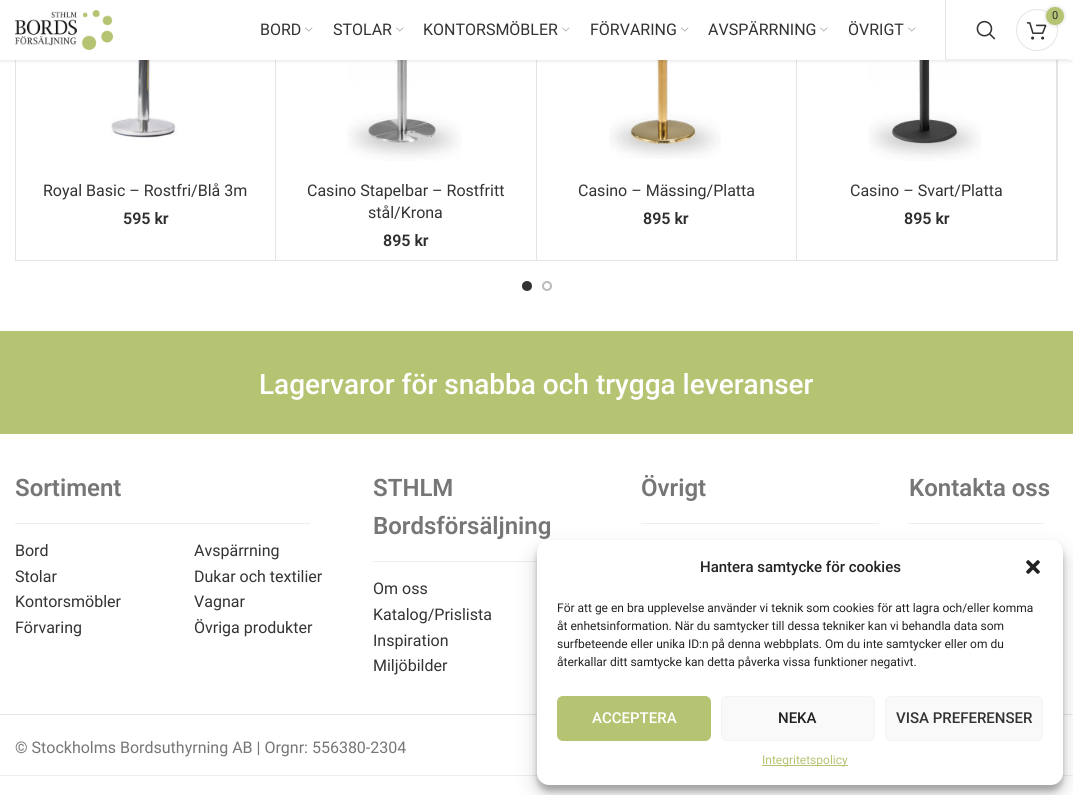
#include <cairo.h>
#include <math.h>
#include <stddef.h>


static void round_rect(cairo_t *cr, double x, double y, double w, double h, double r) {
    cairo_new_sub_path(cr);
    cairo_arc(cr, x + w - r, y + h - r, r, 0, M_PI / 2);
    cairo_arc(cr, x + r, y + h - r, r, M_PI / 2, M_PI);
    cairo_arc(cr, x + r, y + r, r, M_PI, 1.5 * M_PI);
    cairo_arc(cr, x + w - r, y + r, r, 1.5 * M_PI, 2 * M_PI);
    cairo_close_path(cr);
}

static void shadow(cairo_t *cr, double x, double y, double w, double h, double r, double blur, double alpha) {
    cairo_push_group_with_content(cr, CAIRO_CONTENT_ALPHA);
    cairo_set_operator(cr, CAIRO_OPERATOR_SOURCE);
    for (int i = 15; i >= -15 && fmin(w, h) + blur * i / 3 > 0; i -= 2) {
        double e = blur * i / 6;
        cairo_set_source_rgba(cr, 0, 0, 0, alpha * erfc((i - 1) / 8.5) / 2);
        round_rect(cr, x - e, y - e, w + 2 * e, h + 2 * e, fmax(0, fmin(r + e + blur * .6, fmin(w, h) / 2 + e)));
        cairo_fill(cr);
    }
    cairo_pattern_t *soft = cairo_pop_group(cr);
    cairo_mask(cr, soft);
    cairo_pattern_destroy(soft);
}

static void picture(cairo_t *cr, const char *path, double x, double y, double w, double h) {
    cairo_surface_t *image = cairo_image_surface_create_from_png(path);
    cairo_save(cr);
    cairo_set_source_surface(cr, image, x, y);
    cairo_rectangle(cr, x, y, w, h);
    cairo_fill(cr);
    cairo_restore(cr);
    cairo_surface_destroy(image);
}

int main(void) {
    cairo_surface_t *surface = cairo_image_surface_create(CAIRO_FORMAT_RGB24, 1073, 795);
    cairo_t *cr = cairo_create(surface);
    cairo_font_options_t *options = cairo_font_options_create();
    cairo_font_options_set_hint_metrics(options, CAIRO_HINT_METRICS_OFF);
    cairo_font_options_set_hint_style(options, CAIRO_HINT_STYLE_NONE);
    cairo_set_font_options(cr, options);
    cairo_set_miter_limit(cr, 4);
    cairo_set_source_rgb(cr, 1, 1, 1);
    cairo_paint(cr);
    cairo_rectangle(cr, 15.5, -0.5, 1042, 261);
    cairo_set_source_rgb(cr, 0.894, 0.894, 0.894);
    cairo_set_line_width(cr, 1);
    cairo_stroke(cr);
    cairo_rectangle(cr, 275, 60, 1, 200);
    cairo_fill(cr);
    picture(cr, "img5.png", 109, 60, 69, 78);
    cairo_rectangle(cr, 536, 60, 1, 200);
    cairo_fill(cr);
    picture(cr, "img6.png", 347, 60, 115, 101);
    cairo_rectangle(cr, 796, 60, 1, 200);
    cairo_fill(cr);
    picture(cr, "img7.png", 609, 60, 112, 99);
    cairo_rectangle(cr, 1056, 60, 1, 200);
    cairo_fill(cr);
    picture(cr, "img8.png", 868, 60, 114, 101);
    cairo_set_source_rgb(cr, 0, 0, 0);
    shadow(cr, 0, 1, 1073, 60, 0, 1.5, 0.1);
    cairo_set_source_rgb(cr, 1, 1, 1);
    cairo_rectangle(cr, 0, 0, 1073, 60);
    cairo_fill(cr);
    picture(cr, "img1.png", 15, 10, 98, 40);
    cairo_set_source_rgb(cr, 0.933, 0.933, 0.933);
    cairo_rectangle(cr, 945, 59, 123, 1);
    cairo_fill(cr);
    cairo_set_source_rgb(cr, 0.894, 0.894, 0.894);
    cairo_rectangle(cr, 945, 0, 1, 59);
    cairo_fill(cr);
    cairo_arc(cr, 1037, 30, 20.5, 0, 2 * M_PI);
    cairo_stroke(cr);
    picture(cr, "img2.png", 1027, 22, 20, 18);
    cairo_set_source_rgb(cr, 0, 0, 0);
    shadow(cr, 1046, 7, 18, 18, 9, 2, 0.17);
    cairo_set_source_rgb(cr, 0.71, 0.769, 0.447);
    cairo_arc(cr, 1055, 16, 9, 0, 2 * M_PI);
    cairo_fill(cr);
    cairo_select_font_face(cr, "Roboto", CAIRO_FONT_SLANT_NORMAL, CAIRO_FONT_WEIGHT_NORMAL);
    cairo_set_font_size(cr, 11);
    cairo_set_source_rgb(cr, 0.176, 0.176, 0.176);
    cairo_move_to(cr, 1052, 19);
    cairo_show_text(cr, "0");
    picture(cr, "img3.png", 976, 20, 20, 20);
    cairo_set_font_size(cr, 16);
    cairo_set_source_rgb(cr, 0.2, 0.2, 0.2);
    cairo_move_to(cr, 260, 35);
    cairo_show_text(cr, "BORD");
    picture(cr, "img4.png", 305, 27, 8, 5);
    cairo_move_to(cr, 333, 35);
    cairo_show_text(cr, "STOLAR");
    picture(cr, "img4.png", 396, 27, 8, 5);
    cairo_move_to(cr, 423, 35);
    cairo_show_text(cr, "KONTORSMÖBLER");
    picture(cr, "img4.png", 562, 27, 8, 5);
    cairo_move_to(cr, 590, 35);
    cairo_show_text(cr, "FÖRVARING");
    picture(cr, "img4.png", 681, 27, 8, 5);
    cairo_move_to(cr, 708, 35);
    cairo_show_text(cr, "AVSPÄRRNING");
    picture(cr, "img4.png", 820, 27, 8, 5);
    cairo_move_to(cr, 848, 35);
    cairo_show_text(cr, "ÖVRIGT");
    picture(cr, "img4.png", 908, 27, 8, 5);
    cairo_move_to(cr, 43, 196);
    cairo_show_text(cr, "Royal Basic – Rostfri/Blå 3m");
    cairo_select_font_face(cr, "Roboto SemiBold", CAIRO_FONT_SLANT_NORMAL, CAIRO_FONT_WEIGHT_NORMAL);
    cairo_set_source_rgb(cr, 0.176, 0.176, 0.176);
    cairo_move_to(cr, 123, 224);
    cairo_show_text(cr, "595 kr");
    cairo_select_font_face(cr, "Roboto", CAIRO_FONT_SLANT_NORMAL, CAIRO_FONT_WEIGHT_NORMAL);
    cairo_set_source_rgb(cr, 0.2, 0.2, 0.2);
    cairo_move_to(cr, 307, 196);
    cairo_show_text(cr, "Casino Stapelbar – Rostfritt");
    cairo_move_to(cr, 368, 218);
    cairo_show_text(cr, "stål/Krona");
    cairo_select_font_face(cr, "Roboto SemiBold", CAIRO_FONT_SLANT_NORMAL, CAIRO_FONT_WEIGHT_NORMAL);
    cairo_set_source_rgb(cr, 0.176, 0.176, 0.176);
    cairo_move_to(cr, 383, 246);
    cairo_show_text(cr, "895 kr");
    cairo_select_font_face(cr, "Roboto", CAIRO_FONT_SLANT_NORMAL, CAIRO_FONT_WEIGHT_NORMAL);
    cairo_set_source_rgb(cr, 0.2, 0.2, 0.2);
    cairo_move_to(cr, 578, 196);
    cairo_show_text(cr, "Casino – Mässing/Platta");
    cairo_select_font_face(cr, "Roboto SemiBold", CAIRO_FONT_SLANT_NORMAL, CAIRO_FONT_WEIGHT_NORMAL);
    cairo_set_source_rgb(cr, 0.176, 0.176, 0.176);
    cairo_move_to(cr, 643, 224);
    cairo_show_text(cr, "895 kr");
    cairo_select_font_face(cr, "Roboto", CAIRO_FONT_SLANT_NORMAL, CAIRO_FONT_WEIGHT_NORMAL);
    cairo_set_source_rgb(cr, 0.2, 0.2, 0.2);
    cairo_move_to(cr, 850, 196);
    cairo_show_text(cr, "Casino – Svart/Platta");
    cairo_select_font_face(cr, "Roboto SemiBold", CAIRO_FONT_SLANT_NORMAL, CAIRO_FONT_WEIGHT_NORMAL);
    cairo_set_source_rgb(cr, 0.176, 0.176, 0.176);
    cairo_move_to(cr, 904, 224);
    cairo_show_text(cr, "895 kr");
    cairo_set_source_rgb(cr, 0.2, 0.2, 0.2);
    cairo_new_path(cr);
    cairo_arc(cr, 527, 286, 4, 0, 2 * M_PI);
    cairo_fill_preserve(cr);
    cairo_set_line_width(cr, 2);
    cairo_stroke(cr);
    cairo_arc(cr, 547, 286, 4, 0, 2 * M_PI);
    cairo_set_source_rgb(cr, 0.733, 0.733, 0.733);
    cairo_stroke(cr);
    cairo_set_source_rgb(cr, 0.71, 0.769, 0.447);
    cairo_rectangle(cr, 0, 331, 1073, 103);
    cairo_fill(cr);
    cairo_select_font_face(cr, "Roboto Medium", CAIRO_FONT_SLANT_NORMAL, CAIRO_FONT_WEIGHT_NORMAL);
    cairo_set_font_size(cr, 28);
    cairo_set_source_rgb(cr, 1, 1, 1);
    cairo_move_to(cr, 259, 394);
    cairo_show_text(cr, "Lagervaror för snabba och trygga leveranser");
    cairo_select_font_face(cr, "Roboto SemiBold", CAIRO_FONT_SLANT_NORMAL, CAIRO_FONT_WEIGHT_NORMAL);
    cairo_set_font_size(cr, 24);
    cairo_set_source_rgb(cr, 0.463, 0.463, 0.463);
    cairo_move_to(cr, 15, 496);
    cairo_show_text(cr, "Sortiment");
    cairo_set_source_rgb(cr, 0.933, 0.933, 0.933);
    cairo_rectangle(cr, 15, 523, 295, 1);
    cairo_fill(cr);
    cairo_select_font_face(cr, "Roboto", CAIRO_FONT_SLANT_NORMAL, CAIRO_FONT_WEIGHT_NORMAL);
    cairo_set_font_size(cr, 16);
    cairo_set_source_rgb(cr, 0.2, 0.2, 0.2);
    cairo_move_to(cr, 15, 556);
    cairo_show_text(cr, "Bord");
    cairo_move_to(cr, 15, 582);
    cairo_show_text(cr, "Stolar");
    cairo_move_to(cr, 15, 607);
    cairo_show_text(cr, "Kontorsmöbler");
    cairo_move_to(cr, 15, 633);
    cairo_show_text(cr, "Förvaring");
    cairo_move_to(cr, 194, 556);
    cairo_show_text(cr, "Avspärrning");
    cairo_move_to(cr, 194, 582);
    cairo_show_text(cr, "Dukar och textilier");
    cairo_move_to(cr, 194, 607);
    cairo_show_text(cr, "Vagnar");
    cairo_move_to(cr, 194, 633);
    cairo_show_text(cr, "Övriga produkter");
    cairo_select_font_face(cr, "Roboto SemiBold", CAIRO_FONT_SLANT_NORMAL, CAIRO_FONT_WEIGHT_NORMAL);
    cairo_set_font_size(cr, 24);
    cairo_set_source_rgb(cr, 0.463, 0.463, 0.463);
    cairo_move_to(cr, 373, 496);
    cairo_show_text(cr, "STHLM");
    cairo_move_to(cr, 373, 534);
    cairo_show_text(cr, "Bordsförsäljning");
    cairo_set_source_rgb(cr, 0.933, 0.933, 0.933);
    cairo_rectangle(cr, 373, 561, 164, 1);
    cairo_fill(cr);
    cairo_select_font_face(cr, "Roboto", CAIRO_FONT_SLANT_NORMAL, CAIRO_FONT_WEIGHT_NORMAL);
    cairo_set_font_size(cr, 16);
    cairo_set_source_rgb(cr, 0.2, 0.2, 0.2);
    cairo_move_to(cr, 373, 594);
    cairo_show_text(cr, "Om oss");
    cairo_move_to(cr, 373, 620);
    cairo_show_text(cr, "Katalog/Prislista");
    cairo_move_to(cr, 373, 646);
    cairo_show_text(cr, "Inspiration");
    cairo_move_to(cr, 373, 671);
    cairo_show_text(cr, "Miljöbilder");
    cairo_select_font_face(cr, "Roboto SemiBold", CAIRO_FONT_SLANT_NORMAL, CAIRO_FONT_WEIGHT_NORMAL);
    cairo_set_font_size(cr, 24);
    cairo_set_source_rgb(cr, 0.463, 0.463, 0.463);
    cairo_move_to(cr, 641, 496);
    cairo_show_text(cr, "Övrigt");
    cairo_set_source_rgb(cr, 0.933, 0.933, 0.933);
    cairo_rectangle(cr, 641, 523, 238, 1);
    cairo_fill(cr);
    cairo_set_source_rgb(cr, 0.463, 0.463, 0.463);
    cairo_move_to(cr, 909, 496);
    cairo_show_text(cr, "Kontakta oss");
    cairo_set_source_rgb(cr, 0.933, 0.933, 0.933);
    cairo_rectangle(cr, 909, 523, 134, 1);
    cairo_fill(cr);
    cairo_set_source_rgb(cr, 0.902, 0.902, 0.902);
    cairo_rectangle(cr, 0, 714, 1073, 1);
    cairo_fill(cr);
    cairo_select_font_face(cr, "Roboto", CAIRO_FONT_SLANT_NORMAL, CAIRO_FONT_WEIGHT_NORMAL);
    cairo_set_font_size(cr, 16);
    cairo_set_source_rgb(cr, 0.463, 0.463, 0.463);
    cairo_move_to(cr, 15, 753);
    cairo_show_text(cr, "© Stockholms Bordsuthyrning AB | Orgnr: 556380-2304");
    cairo_set_source_rgb(cr, 0.933, 0.933, 0.933);
    cairo_rectangle(cr, 0, 775, 1073, 1);
    cairo_fill(cr);
    cairo_set_source_rgb(cr, 0, 0, 0);
    shadow(cr, 537, 546, 526, 245, 12, 3, 0.23);
    shadow(cr, 537, 550, 526, 245, 12, 10, 0.19);
    cairo_set_source_rgb(cr, 1, 1, 1);
    round_rect(cr, 537, 540, 526, 245, 12);
    cairo_fill(cr);
    cairo_select_font_face(cr, "Roboto Medium", CAIRO_FONT_SLANT_NORMAL, CAIRO_FONT_WEIGHT_NORMAL);
    cairo_set_font_size(cr, 15);
    cairo_set_source_rgb(cr, 0.133, 0.133, 0.133);
    cairo_move_to(cr, 700, 572);
    cairo_show_text(cr, "Hantera samtycke för cookies");
    picture(cr, "img9.png", 1026, 560, 14, 14);
    cairo_select_font_face(cr, "Roboto", CAIRO_FONT_SLANT_NORMAL, CAIRO_FONT_WEIGHT_NORMAL);
    cairo_set_font_size(cr, 12);
    cairo_move_to(cr, 557, 612);
    cairo_show_text(cr, "För att ge en bra upplevelse använder vi teknik som cookies för att lagra och/eller komma");
    cairo_move_to(cr, 557, 630);
    cairo_show_text(cr, "åt enhetsinformation. När du samtycker till dessa tekniker kan vi behandla data som");
    cairo_move_to(cr, 557, 648);
    cairo_show_text(cr, "surfbeteende eller unika ID:n på denna webbplats. Om du inte samtycker eller om du");
    cairo_move_to(cr, 557, 666);
    cairo_show_text(cr, "återkallar ditt samtycke kan detta påverka vissa funktioner negativt.");
    cairo_set_source_rgb(cr, 0.71, 0.769, 0.447);
    round_rect(cr, 557.5, 696.5, 153, 44, 5.5);
    cairo_fill_preserve(cr);
    cairo_set_line_width(cr, 1);
    cairo_stroke(cr);
    cairo_select_font_face(cr, "Roboto Medium", CAIRO_FONT_SLANT_NORMAL, CAIRO_FONT_WEIGHT_NORMAL);
    cairo_set_font_size(cr, 15);
    cairo_set_source_rgb(cr, 1, 1, 1);
    cairo_move_to(cr, 592, 723);
    cairo_show_text(cr, "ACCEPTERA");
    cairo_set_source_rgb(cr, 0.976, 0.976, 0.976);
    round_rect(cr, 721.5, 696.5, 153, 44, 5.5);
    cairo_fill_preserve(cr);
    cairo_set_source_rgb(cr, 0.949, 0.949, 0.949);
    cairo_stroke(cr);
    cairo_set_source_rgb(cr, 0.133, 0.133, 0.133);
    cairo_move_to(cr, 778, 723);
    cairo_show_text(cr, "NEKA");
    cairo_set_source_rgb(cr, 0.976, 0.976, 0.976);
    round_rect(cr, 885.5, 696.5, 157, 44, 5.5);
    cairo_fill_preserve(cr);
    cairo_set_source_rgb(cr, 0.949, 0.949, 0.949);
    cairo_stroke(cr);
    cairo_set_source_rgb(cr, 0.2, 0.2, 0.2);
    cairo_move_to(cr, 896, 723);
    cairo_show_text(cr, "VISA PREFERENSER");
    cairo_set_source_rgb(cr, 0.71, 0.769, 0.447);
    cairo_rectangle(cr, 762, 765, 86, 1);
    cairo_fill(cr);
    cairo_select_font_face(cr, "Roboto", CAIRO_FONT_SLANT_NORMAL, CAIRO_FONT_WEIGHT_NORMAL);
    cairo_set_font_size(cr, 12);
    cairo_move_to(cr, 762, 764);
    cairo_show_text(cr, "Integritetspolicy");
    cairo_surface_write_to_png(surface, "page.png");
    cairo_font_options_destroy(options);
    cairo_destroy(cr);
    cairo_surface_destroy(surface);
    return 0;
}
